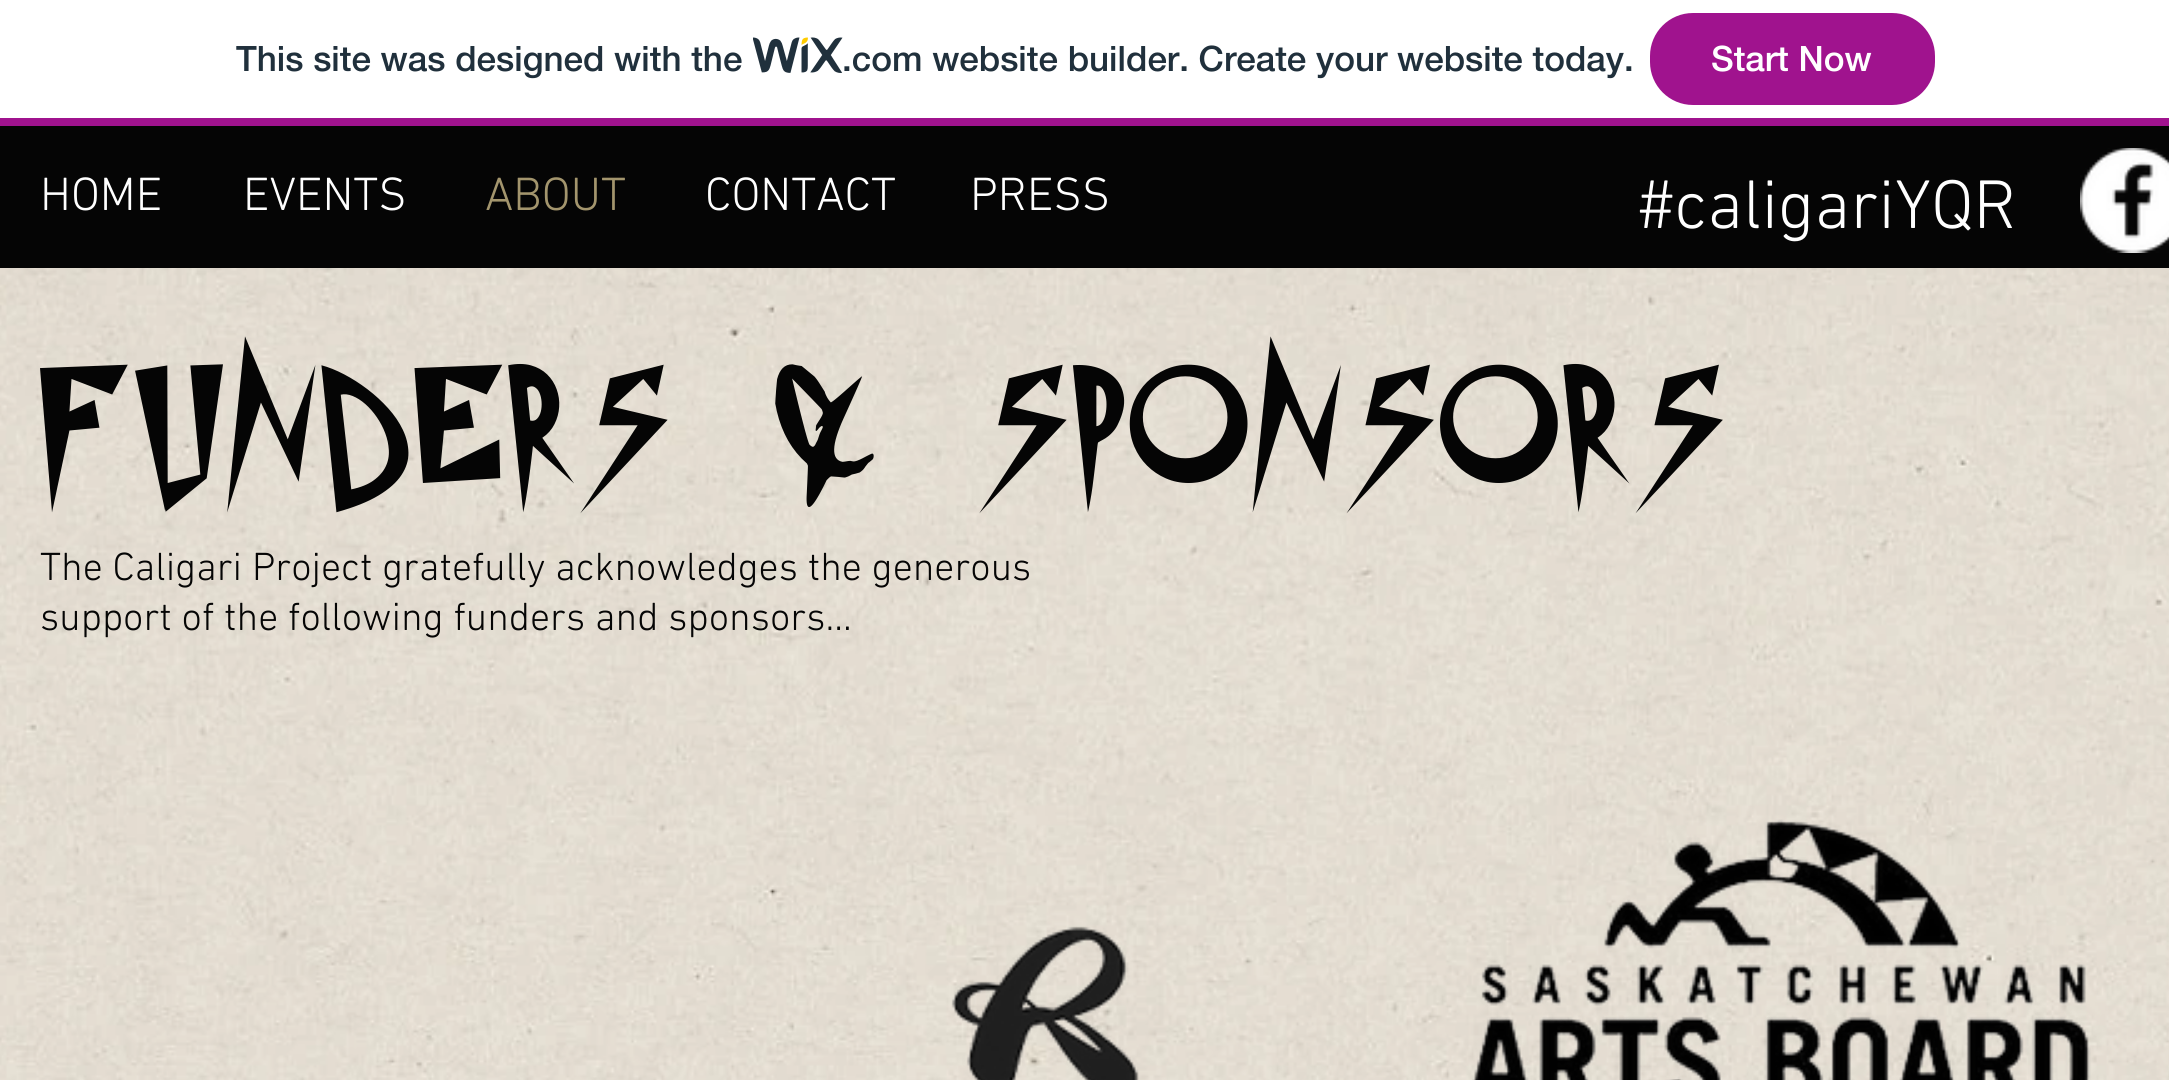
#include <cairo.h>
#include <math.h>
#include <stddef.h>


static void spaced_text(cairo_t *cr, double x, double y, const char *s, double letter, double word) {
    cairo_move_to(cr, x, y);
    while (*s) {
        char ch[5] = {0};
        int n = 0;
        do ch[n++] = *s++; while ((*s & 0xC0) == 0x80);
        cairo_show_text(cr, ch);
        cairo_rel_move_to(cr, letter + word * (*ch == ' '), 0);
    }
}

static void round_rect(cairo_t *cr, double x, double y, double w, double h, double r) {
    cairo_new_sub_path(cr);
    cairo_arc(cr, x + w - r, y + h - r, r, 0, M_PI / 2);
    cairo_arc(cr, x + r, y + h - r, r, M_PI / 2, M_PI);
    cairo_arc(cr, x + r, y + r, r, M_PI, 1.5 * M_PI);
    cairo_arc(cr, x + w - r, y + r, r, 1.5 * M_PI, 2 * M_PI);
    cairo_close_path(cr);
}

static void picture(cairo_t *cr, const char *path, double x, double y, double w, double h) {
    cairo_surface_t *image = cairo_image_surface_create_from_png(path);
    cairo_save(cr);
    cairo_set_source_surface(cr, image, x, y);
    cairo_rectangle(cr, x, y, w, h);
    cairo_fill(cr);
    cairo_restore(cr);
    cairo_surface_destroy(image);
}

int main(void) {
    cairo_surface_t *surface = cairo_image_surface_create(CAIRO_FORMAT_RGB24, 2169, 1080);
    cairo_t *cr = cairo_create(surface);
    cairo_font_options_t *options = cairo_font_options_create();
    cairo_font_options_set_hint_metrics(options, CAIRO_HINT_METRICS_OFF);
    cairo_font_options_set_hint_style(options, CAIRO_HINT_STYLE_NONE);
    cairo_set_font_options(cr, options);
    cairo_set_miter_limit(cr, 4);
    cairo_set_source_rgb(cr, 1, 1, 1);
    cairo_paint(cr);
    cairo_set_source_rgb(cr, 0.627, 0.075, 0.557);
    cairo_rectangle(cr, 0, 118, 2169, 8);
    cairo_fill(cr);
    cairo_select_font_face(cr, "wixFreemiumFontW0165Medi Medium", CAIRO_FONT_SLANT_NORMAL, CAIRO_FONT_WEIGHT_NORMAL);
    cairo_set_font_size(cr, 35);
    cairo_set_source_rgb(cr, 0.125, 0.188, 0.235);
    cairo_move_to(cr, 236, 71);
    cairo_show_text(cr, "This site was designed with the");
    picture(cr, "img1.png", 753, 37, 90, 36);
    cairo_move_to(cr, 842, 71);
    cairo_show_text(cr, ".com website builder. Create your website today.");
    cairo_set_source_rgb(cr, 0.627, 0.075, 0.557);
    round_rect(cr, 1651.5, 14.5, 282, 89, 41.5);
    cairo_fill_preserve(cr);
    cairo_set_line_width(cr, 3);
    cairo_stroke(cr);
    cairo_set_source_rgb(cr, 1, 1, 1);
    cairo_move_to(cr, 1711, 71);
    cairo_show_text(cr, "Start Now");
    cairo_set_source_rgb(cr, 0.02, 0.02, 0.02);
    cairo_rectangle(cr, 0, 126, 2169, 142);
    cairo_fill(cr);
    cairo_select_font_face(cr, "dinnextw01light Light", CAIRO_FONT_SLANT_NORMAL, CAIRO_FONT_WEIGHT_NORMAL);
    cairo_set_font_size(cr, 47.5);
    cairo_set_source_rgb(cr, 1, 1, 1);
    cairo_move_to(cr, 40, 210);
    cairo_show_text(cr, "HOME");
    cairo_move_to(cr, 243, 210);
    cairo_show_text(cr, "EVENTS");
    cairo_set_source_rgb(cr, 0.639, 0.584, 0.427);
    cairo_move_to(cr, 485, 210);
    cairo_show_text(cr, "ABOUT");
    cairo_set_source_rgb(cr, 1, 1, 1);
    cairo_move_to(cr, 705, 210);
    cairo_show_text(cr, "CONTACT");
    cairo_move_to(cr, 970, 210);
    cairo_show_text(cr, "PRESS");
    cairo_set_font_size(cr, 70);
    cairo_move_to(cr, 1638, 228);
    cairo_show_text(cr, "#caligariYQR");
    picture(cr, "img2.png", 2080, 148, 89, 105);
    picture(cr, "img5.png", 0, 268, 2169, 812);
    cairo_select_font_face(cr, "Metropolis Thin", CAIRO_FONT_SLANT_NORMAL, CAIRO_FONT_WEIGHT_NORMAL);
    cairo_set_font_size(cr, 187.5);
    cairo_set_source_rgb(cr, 0.02, 0.02, 0.02);
    spaced_text(cr, 40, 483, "FUNDERS & SPONSORS", 5.6, 0);
    cairo_select_font_face(cr, "dinnextw01light Light", CAIRO_FONT_SLANT_NORMAL, CAIRO_FONT_WEIGHT_NORMAL);
    cairo_set_font_size(cr, 40);
    cairo_move_to(cr, 40, 580);
    cairo_show_text(cr, "The Caligari Project gratefully acknowledges the generous");
    cairo_move_to(cr, 40, 630);
    cairo_show_text(cr, "support of the following funders and sponsors...");
    picture(cr, "img3.png", 951, 926, 188, 154);
    picture(cr, "img4.png", 1472, 819, 619, 261);
    cairo_surface_write_to_png(surface, "page.png");
    cairo_font_options_destroy(options);
    cairo_destroy(cr);
    cairo_surface_destroy(surface);
    return 0;
}
